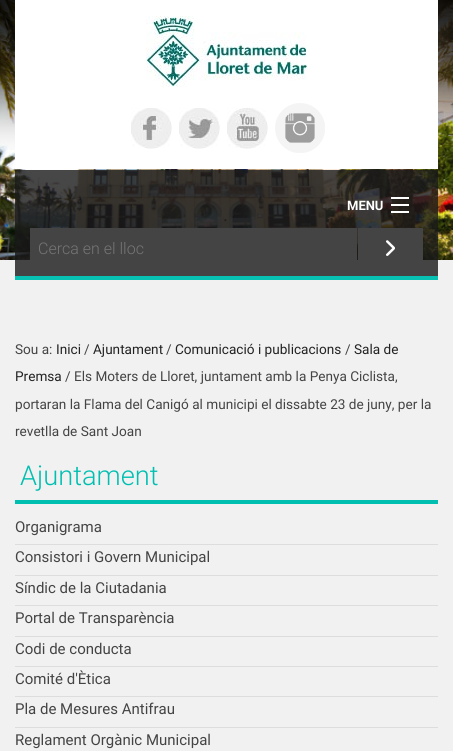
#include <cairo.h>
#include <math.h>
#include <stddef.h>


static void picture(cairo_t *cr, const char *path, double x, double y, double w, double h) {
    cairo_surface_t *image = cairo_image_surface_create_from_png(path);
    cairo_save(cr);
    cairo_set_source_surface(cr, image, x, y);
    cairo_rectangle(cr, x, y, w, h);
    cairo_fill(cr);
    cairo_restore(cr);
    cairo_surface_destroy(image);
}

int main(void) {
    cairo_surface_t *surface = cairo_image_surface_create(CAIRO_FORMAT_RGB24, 453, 751);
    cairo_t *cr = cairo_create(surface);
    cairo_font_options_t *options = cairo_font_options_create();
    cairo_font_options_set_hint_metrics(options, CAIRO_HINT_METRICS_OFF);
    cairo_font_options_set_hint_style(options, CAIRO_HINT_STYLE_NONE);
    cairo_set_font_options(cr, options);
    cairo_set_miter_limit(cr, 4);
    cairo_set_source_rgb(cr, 0.945, 0.945, 0.945);
    cairo_paint(cr);
    picture(cr, "img1.png", 0, 0, 453, 260);
    cairo_set_source_rgb(cr, 1, 1, 1);
    cairo_rectangle(cr, 15, 0, 423, 169);
    cairo_fill(cr);
    picture(cr, "img2.png", 146, 16, 162, 71);
    picture(cr, "img3.png", 131, 108, 41, 41);
    picture(cr, "img4.png", 179, 108, 41, 41);
    picture(cr, "img5.png", 227, 108, 41, 41);
    picture(cr, "img6.png", 275, 103, 50, 50);
    cairo_set_source_rgba(cr, 0.098, 0.098, 0.098, 0.8);
    cairo_rectangle(cr, 15, 170, 423, 106);
    cairo_fill(cr);
    cairo_set_source_rgb(cr, 0.031, 0.757, 0.702);
    cairo_rectangle(cr, 15, 276, 423, 4);
    cairo_fill(cr);
    cairo_select_font_face(cr, "Roboto", CAIRO_FONT_SLANT_NORMAL, CAIRO_FONT_WEIGHT_BOLD);
    cairo_set_font_size(cr, 13);
    cairo_set_source_rgb(cr, 1, 1, 1);
    cairo_move_to(cr, 347, 210);
    cairo_show_text(cr, "MENU");
    cairo_rectangle(cr, 391, 211, 18, 2);
    cairo_fill(cr);
    cairo_rectangle(cr, 391, 204, 18, 2);
    cairo_fill(cr);
    cairo_rectangle(cr, 391, 197, 18, 2);
    cairo_fill(cr);
    cairo_set_source_rgb(cr, 0.267, 0.267, 0.267);
    cairo_rectangle(cr, 30, 228, 327, 32);
    cairo_fill(cr);
    cairo_select_font_face(cr, "Roboto Light", CAIRO_FONT_SLANT_NORMAL, CAIRO_FONT_WEIGHT_NORMAL);
    cairo_set_font_size(cr, 16);
    cairo_set_source_rgb(cr, 0.459, 0.459, 0.459);
    cairo_move_to(cr, 38, 254);
    cairo_show_text(cr, "Cerca en el lloc");
    cairo_set_source_rgb(cr, 0.267, 0.267, 0.267);
    cairo_rectangle(cr, 358, 228, 65, 32);
    cairo_fill(cr);
    picture(cr, "img7.png", 386, 240, 9, 16);
    cairo_select_font_face(cr, "Roboto", CAIRO_FONT_SLANT_NORMAL, CAIRO_FONT_WEIGHT_NORMAL);
    cairo_set_font_size(cr, 13.6);
    cairo_move_to(cr, 15, 354);
    cairo_show_text(cr, "Sou a:");
    cairo_set_source_rgb(cr, 0.133, 0.133, 0.133);
    cairo_move_to(cr, 56, 354);
    cairo_show_text(cr, "Inici");
    cairo_set_source_rgb(cr, 0.267, 0.267, 0.267);
    cairo_move_to(cr, 84, 354);
    cairo_show_text(cr, "/");
    cairo_set_source_rgb(cr, 0.133, 0.133, 0.133);
    cairo_move_to(cr, 93, 354);
    cairo_show_text(cr, "Ajuntament");
    cairo_set_source_rgb(cr, 0.267, 0.267, 0.267);
    cairo_move_to(cr, 166, 354);
    cairo_show_text(cr, "/");
    cairo_set_source_rgb(cr, 0.133, 0.133, 0.133);
    cairo_move_to(cr, 175, 354);
    cairo_show_text(cr, "Comunicació i publicacions");
    cairo_set_source_rgb(cr, 0.267, 0.267, 0.267);
    cairo_move_to(cr, 345, 354);
    cairo_show_text(cr, "/");
    cairo_set_source_rgb(cr, 0.133, 0.133, 0.133);
    cairo_move_to(cr, 354, 354);
    cairo_show_text(cr, "Sala de");
    cairo_move_to(cr, 15, 381);
    cairo_show_text(cr, "Premsa");
    cairo_set_source_rgb(cr, 0.267, 0.267, 0.267);
    cairo_move_to(cr, 65, 381);
    cairo_show_text(cr, "/ Els Moters de Lloret, juntament amb la Penya Ciclista,");
    cairo_move_to(cr, 15, 409);
    cairo_show_text(cr, "portaran la Flama del Canigó al municipi el dissabte 23 de juny, per la");
    cairo_move_to(cr, 15, 436);
    cairo_show_text(cr, "revetlla de Sant Joan");
    cairo_set_source_rgb(cr, 0, 0.749, 0.694);
    cairo_rectangle(cr, 15, 500, 423, 4);
    cairo_fill(cr);
    cairo_select_font_face(cr, "Roboto Light", CAIRO_FONT_SLANT_NORMAL, CAIRO_FONT_WEIGHT_NORMAL);
    cairo_set_font_size(cr, 27.25);
    cairo_move_to(cr, 20, 485);
    cairo_show_text(cr, "Ajuntament");
    cairo_set_source_rgb(cr, 0.867, 0.867, 0.867);
    cairo_rectangle(cr, 15, 544, 423, 1);
    cairo_fill(cr);
    cairo_select_font_face(cr, "Roboto", CAIRO_FONT_SLANT_NORMAL, CAIRO_FONT_WEIGHT_NORMAL);
    cairo_set_font_size(cr, 15);
    cairo_set_source_rgb(cr, 0.267, 0.267, 0.267);
    cairo_move_to(cr, 15, 532);
    cairo_show_text(cr, "Organigrama");
    cairo_set_source_rgb(cr, 0.867, 0.867, 0.867);
    cairo_rectangle(cr, 15, 575, 423, 1);
    cairo_fill(cr);
    cairo_set_source_rgb(cr, 0.267, 0.267, 0.267);
    cairo_move_to(cr, 15, 562);
    cairo_show_text(cr, "Consistori i Govern Municipal");
    cairo_set_source_rgb(cr, 0.867, 0.867, 0.867);
    cairo_rectangle(cr, 15, 605, 423, 1);
    cairo_fill(cr);
    cairo_set_source_rgb(cr, 0.267, 0.267, 0.267);
    cairo_move_to(cr, 15, 593);
    cairo_show_text(cr, "Síndic de la Ciutadania");
    cairo_set_source_rgb(cr, 0.867, 0.867, 0.867);
    cairo_rectangle(cr, 15, 636, 423, 1);
    cairo_fill(cr);
    cairo_set_source_rgb(cr, 0.267, 0.267, 0.267);
    cairo_move_to(cr, 15, 623);
    cairo_show_text(cr, "Portal de Transparència");
    cairo_set_source_rgb(cr, 0.867, 0.867, 0.867);
    cairo_rectangle(cr, 15, 666, 423, 1);
    cairo_fill(cr);
    cairo_set_source_rgb(cr, 0.267, 0.267, 0.267);
    cairo_move_to(cr, 15, 654);
    cairo_show_text(cr, "Codi de conducta");
    cairo_set_source_rgb(cr, 0.867, 0.867, 0.867);
    cairo_rectangle(cr, 15, 696, 423, 1);
    cairo_fill(cr);
    cairo_set_source_rgb(cr, 0.267, 0.267, 0.267);
    cairo_move_to(cr, 15, 684);
    cairo_show_text(cr, "Comité d'Ètica");
    cairo_set_source_rgb(cr, 0.867, 0.867, 0.867);
    cairo_rectangle(cr, 15, 727, 423, 1);
    cairo_fill(cr);
    cairo_set_source_rgb(cr, 0.267, 0.267, 0.267);
    cairo_move_to(cr, 15, 714);
    cairo_show_text(cr, "Pla de Mesures Antifrau");
    cairo_move_to(cr, 15, 745);
    cairo_show_text(cr, "Reglament Orgànic Municipal");
    cairo_surface_write_to_png(surface, "page.png");
    cairo_font_options_destroy(options);
    cairo_destroy(cr);
    cairo_surface_destroy(surface);
    return 0;
}
